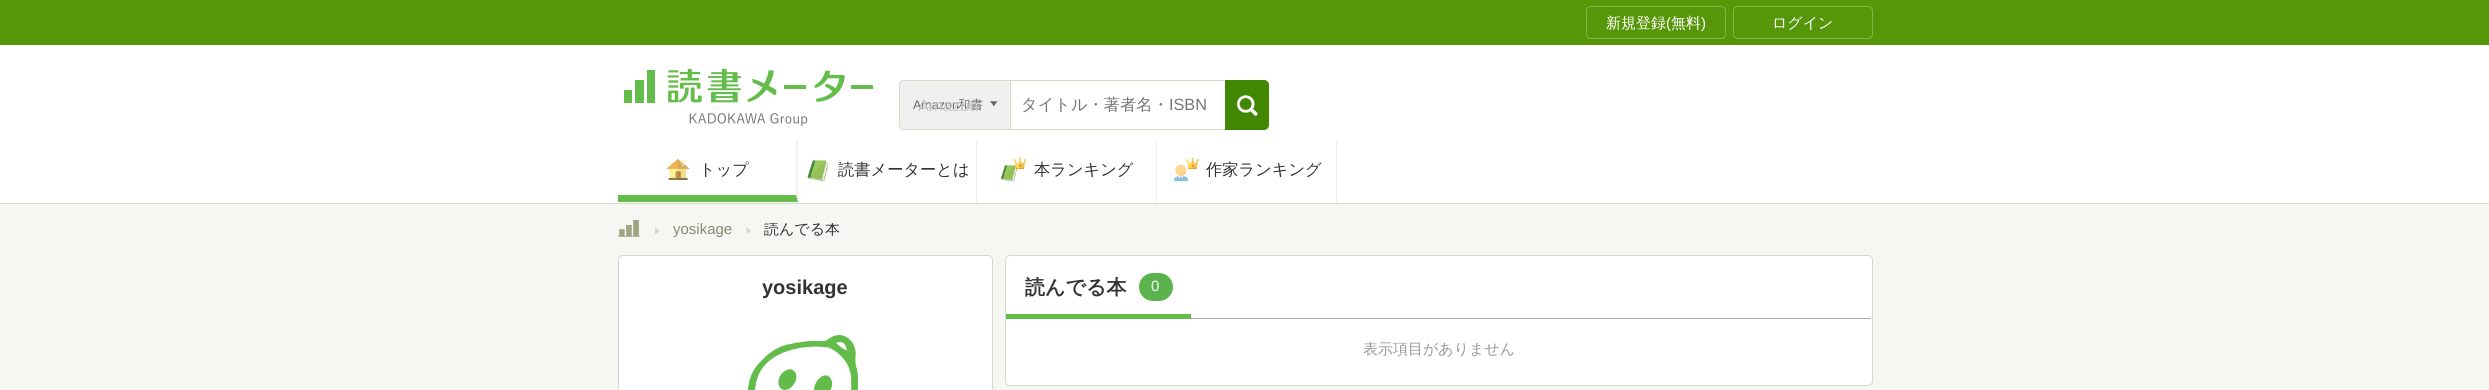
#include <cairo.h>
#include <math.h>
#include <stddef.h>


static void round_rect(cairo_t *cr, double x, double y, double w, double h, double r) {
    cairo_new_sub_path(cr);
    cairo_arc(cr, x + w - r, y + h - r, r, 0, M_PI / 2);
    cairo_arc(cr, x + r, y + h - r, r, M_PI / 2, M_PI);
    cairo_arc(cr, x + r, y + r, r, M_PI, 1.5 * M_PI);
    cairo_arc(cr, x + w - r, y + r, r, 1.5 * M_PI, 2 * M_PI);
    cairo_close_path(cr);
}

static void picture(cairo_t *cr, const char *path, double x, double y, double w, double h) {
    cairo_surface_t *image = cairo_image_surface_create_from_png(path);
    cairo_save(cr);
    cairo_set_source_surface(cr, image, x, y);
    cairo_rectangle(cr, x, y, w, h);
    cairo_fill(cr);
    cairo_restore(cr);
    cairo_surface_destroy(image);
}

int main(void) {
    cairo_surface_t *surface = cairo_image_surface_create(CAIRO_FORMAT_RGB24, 2489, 390);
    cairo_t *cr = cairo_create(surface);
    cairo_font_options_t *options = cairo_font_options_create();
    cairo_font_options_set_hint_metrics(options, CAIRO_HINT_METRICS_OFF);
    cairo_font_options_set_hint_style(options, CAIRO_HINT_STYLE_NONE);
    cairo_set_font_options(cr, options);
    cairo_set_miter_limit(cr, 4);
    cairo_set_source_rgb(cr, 0.961, 0.965, 0.949);
    cairo_paint(cr);
    cairo_set_source_rgb(cr, 1, 1, 1);
    cairo_rectangle(cr, 0, 45, 2489, 158);
    cairo_fill(cr);
    cairo_set_source_rgb(cr, 0.831, 0.855, 0.796);
    cairo_rectangle(cr, 0, 203, 2489, 1);
    cairo_fill(cr);
    cairo_set_source_rgb(cr, 0.337, 0.592, 0.039);
    cairo_rectangle(cr, 0, 0, 2489, 45);
    cairo_fill(cr);
    round_rect(cr, 1586.5, 6.5, 139, 32, 4.5);
    cairo_set_source_rgb(cr, 0.518, 0.702, 0.298);
    cairo_set_line_width(cr, 1);
    cairo_stroke(cr);
    cairo_select_font_face(cr, "WenQuanYi Zen Hei Medium", CAIRO_FONT_SLANT_NORMAL, CAIRO_FONT_WEIGHT_NORMAL);
    cairo_set_font_size(cr, 15);
    cairo_set_source_rgb(cr, 1, 1, 1);
    cairo_move_to(cr, 1606, 28);
    cairo_show_text(cr, "新規登録");
    cairo_select_font_face(cr, "Liberation Sans", CAIRO_FONT_SLANT_NORMAL, CAIRO_FONT_WEIGHT_NORMAL);
    cairo_move_to(cr, 1666, 28);
    cairo_show_text(cr, "(");
    cairo_select_font_face(cr, "WenQuanYi Zen Hei Medium", CAIRO_FONT_SLANT_NORMAL, CAIRO_FONT_WEIGHT_NORMAL);
    cairo_move_to(cr, 1671, 28);
    cairo_show_text(cr, "無料");
    cairo_select_font_face(cr, "Liberation Sans", CAIRO_FONT_SLANT_NORMAL, CAIRO_FONT_WEIGHT_NORMAL);
    cairo_move_to(cr, 1701, 28);
    cairo_show_text(cr, ")");
    round_rect(cr, 1733.5, 6.5, 139, 32, 4.5);
    cairo_set_source_rgb(cr, 0.518, 0.702, 0.298);
    cairo_stroke(cr);
    cairo_select_font_face(cr, "WenQuanYi Zen Hei Medium", CAIRO_FONT_SLANT_NORMAL, CAIRO_FONT_WEIGHT_NORMAL);
    cairo_set_source_rgb(cr, 1, 1, 1);
    cairo_move_to(cr, 1772, 28);
    cairo_show_text(cr, "ログイン");
    picture(cr, "img1.png", 624, 68, 249, 58);
    cairo_set_source_rgb(cr, 0.941, 0.941, 0.941);
    cairo_new_path(cr);
    cairo_move_to(cr, 904, 80.5);
    cairo_line_to(cr, 1010.5, 80.5);
    cairo_line_to(cr, 1010.5, 129.5);
    cairo_line_to(cr, 904, 129.5);
    cairo_curve_to(cr, 901.5, 129.5, 899.5, 127.5, 899.5, 125);
    cairo_line_to(cr, 899.5, 85);
    cairo_curve_to(cr, 899.5, 82.5, 901.5, 80.5, 904, 80.5);
    cairo_close_path(cr);
    cairo_fill_preserve(cr);
    cairo_set_source_rgb(cr, 0.831, 0.855, 0.796);
    cairo_stroke(cr);
    cairo_set_font_size(cr, 12.5);
    cairo_set_source_rgb(cr, 0.4, 0.4, 0.4);
    cairo_move_to(cr, 958, 109);
    cairo_show_text(cr, "和書");
    cairo_select_font_face(cr, "Liberation Sans", CAIRO_FONT_SLANT_NORMAL, CAIRO_FONT_WEIGHT_NORMAL);
    cairo_move_to(cr, 913, 109);
    cairo_show_text(cr, "Amazon");
    cairo_set_font_size(cr, 16.5);
    cairo_set_source_rgb(cr, 0.792, 0.792, 0.792);
    cairo_move_to(cr, 918, 111);
    cairo_show_text(cr, "Amazon");
    picture(cr, "img2.png", 990, 101, 8, 6);
    cairo_set_source_rgb(cr, 0.831, 0.855, 0.796);
    cairo_rectangle(cr, 1011, 80, 214, 1);
    cairo_fill(cr);
    cairo_rectangle(cr, 1011, 129, 214, 1);
    cairo_fill(cr);
    cairo_select_font_face(cr, "WenQuanYi Zen Hei Medium", CAIRO_FONT_SLANT_NORMAL, CAIRO_FONT_WEIGHT_NORMAL);
    cairo_set_font_size(cr, 16.25);
    cairo_set_source_rgb(cr, 0.459, 0.459, 0.459);
    cairo_move_to(cr, 1021, 110);
    cairo_show_text(cr, "タイトル・著者名・");
    cairo_select_font_face(cr, "Liberation Sans", CAIRO_FONT_SLANT_NORMAL, CAIRO_FONT_WEIGHT_NORMAL);
    cairo_move_to(cr, 1169, 110);
    cairo_show_text(cr, "ISBN");
    cairo_set_source_rgb(cr, 0.255, 0.529, 0.004);
    cairo_new_path(cr);
    cairo_move_to(cr, 1225.5, 80.5);
    cairo_line_to(cr, 1264, 80.5);
    cairo_curve_to(cr, 1266.5, 80.5, 1268.5, 82.5, 1268.5, 85);
    cairo_line_to(cr, 1268.5, 125);
    cairo_curve_to(cr, 1268.5, 127.5, 1266.5, 129.5, 1264, 129.5);
    cairo_line_to(cr, 1225.5, 129.5);
    cairo_close_path(cr);
    cairo_fill_preserve(cr);
    cairo_stroke(cr);
    picture(cr, "img3.png", 1237, 95, 21, 21);
    cairo_set_source_rgb(cr, 0.937, 0.945, 0.922);
    cairo_new_path(cr);
    cairo_move_to(cr, 798, 140);
    cairo_line_to(cr, 798, 202);
    cairo_line_to(cr, 796, 195);
    cairo_line_to(cr, 796, 140);
    cairo_close_path(cr);
    cairo_fill(cr);
    cairo_set_source_rgb(cr, 0.392, 0.737, 0.294);
    cairo_new_path(cr);
    cairo_move_to(cr, 798, 202);
    cairo_line_to(cr, 618, 202);
    cairo_line_to(cr, 618, 195);
    cairo_line_to(cr, 796, 195);
    cairo_close_path(cr);
    cairo_fill(cr);
    picture(cr, "img4.png", 666, 159, 24, 21);
    cairo_select_font_face(cr, "WenQuanYi Zen Hei Medium", CAIRO_FONT_SLANT_NORMAL, CAIRO_FONT_WEIGHT_NORMAL);
    cairo_set_source_rgb(cr, 0.2, 0.2, 0.2);
    cairo_move_to(cr, 699, 175);
    cairo_show_text(cr, "トップ");
    cairo_set_source_rgb(cr, 0.937, 0.945, 0.922);
    cairo_rectangle(cr, 976, 140, 1, 63);
    cairo_fill(cr);
    picture(cr, "img5.png", 807, 160, 22, 22);
    cairo_set_source_rgb(cr, 0.2, 0.2, 0.2);
    cairo_move_to(cr, 838, 175);
    cairo_show_text(cr, "読書メーターとは");
    cairo_set_source_rgb(cr, 0.937, 0.945, 0.922);
    cairo_rectangle(cr, 1156, 140, 1, 63);
    cairo_fill(cr);
    picture(cr, "img6.png", 1000, 157, 27, 25);
    cairo_set_source_rgb(cr, 0.2, 0.2, 0.2);
    cairo_move_to(cr, 1034, 175);
    cairo_show_text(cr, "本ランキング");
    cairo_set_source_rgb(cr, 0.937, 0.945, 0.922);
    cairo_rectangle(cr, 1336, 140, 1, 63);
    cairo_fill(cr);
    picture(cr, "img7.png", 1173, 157, 26, 25);
    cairo_set_source_rgb(cr, 0.2, 0.2, 0.2);
    cairo_move_to(cr, 1206, 175);
    cairo_show_text(cr, "作家ランキング");
    picture(cr, "img8.png", 618, 220, 22, 17);
    picture(cr, "img9.png", 655, 227, 5, 7);
    cairo_select_font_face(cr, "Liberation Sans", CAIRO_FONT_SLANT_NORMAL, CAIRO_FONT_WEIGHT_NORMAL);
    cairo_set_font_size(cr, 15);
    cairo_set_source_rgb(cr, 0.518, 0.545, 0.431);
    cairo_move_to(cr, 673, 234);
    cairo_show_text(cr, "yosikage");
    picture(cr, "img10.png", 746, 227, 5, 7);
    cairo_save(cr);
    cairo_rectangle(cr, 746, 223, 94, 15);
    cairo_clip(cr);
    cairo_select_font_face(cr, "WenQuanYi Zen Hei Medium", CAIRO_FONT_SLANT_NORMAL, CAIRO_FONT_WEIGHT_NORMAL);
    cairo_set_source_rgb(cr, 0.2, 0.2, 0.2);
    cairo_move_to(cr, 764, 234);
    cairo_show_text(cr, "読んでる本");
    cairo_restore(cr);
    cairo_set_source_rgb(cr, 1, 1, 1);
    round_rect(cr, 618.5, 255.5, 374, 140, 4.5);
    cairo_fill_preserve(cr);
    cairo_set_source_rgb(cr, 0.831, 0.855, 0.796);
    cairo_stroke(cr);
    cairo_select_font_face(cr, "Liberation Sans", CAIRO_FONT_SLANT_NORMAL, CAIRO_FONT_WEIGHT_BOLD);
    cairo_set_font_size(cr, 20);
    cairo_set_source_rgb(cr, 0.2, 0.2, 0.2);
    cairo_move_to(cr, 762, 294);
    cairo_show_text(cr, "yosikage");
    picture(cr, "img11.png", 747, 335, 111, 55);
    cairo_set_source_rgb(cr, 1, 1, 1);
    round_rect(cr, 1005.5, 255.5, 867, 130, 4.5);
    cairo_fill_preserve(cr);
    cairo_set_source_rgb(cr, 0.831, 0.855, 0.796);
    cairo_stroke(cr);
    cairo_set_source_rgb(cr, 0.667, 0.667, 0.667);
    cairo_rectangle(cr, 1191, 318, 680, 1);
    cairo_fill(cr);
    cairo_set_source_rgb(cr, 0.392, 0.737, 0.294);
    cairo_rectangle(cr, 1006, 314, 185, 5);
    cairo_fill(cr);
    cairo_select_font_face(cr, "WenQuanYi Zen Hei", CAIRO_FONT_SLANT_NORMAL, CAIRO_FONT_WEIGHT_BOLD);
    cairo_set_source_rgb(cr, 0.2, 0.2, 0.2);
    cairo_move_to(cr, 1025, 294);
    cairo_show_text(cr, "読んでる本");
    cairo_set_source_rgb(cr, 0.353, 0.702, 0.302);
    round_rect(cr, 1139, 273, 34, 28, 14);
    cairo_fill(cr);
    cairo_select_font_face(cr, "Liberation Sans", CAIRO_FONT_SLANT_NORMAL, CAIRO_FONT_WEIGHT_NORMAL);
    cairo_set_font_size(cr, 15);
    cairo_set_source_rgb(cr, 1, 1, 1);
    cairo_move_to(cr, 1151, 291);
    cairo_show_text(cr, "0");
    cairo_select_font_face(cr, "WenQuanYi Zen Hei Medium", CAIRO_FONT_SLANT_NORMAL, CAIRO_FONT_WEIGHT_NORMAL);
    cairo_set_source_rgb(cr, 0.6, 0.6, 0.6);
    cairo_move_to(cr, 1363, 354);
    cairo_show_text(cr, "表示項目がありません");
    cairo_surface_write_to_png(surface, "page.png");
    cairo_font_options_destroy(options);
    cairo_destroy(cr);
    cairo_surface_destroy(surface);
    return 0;
}
